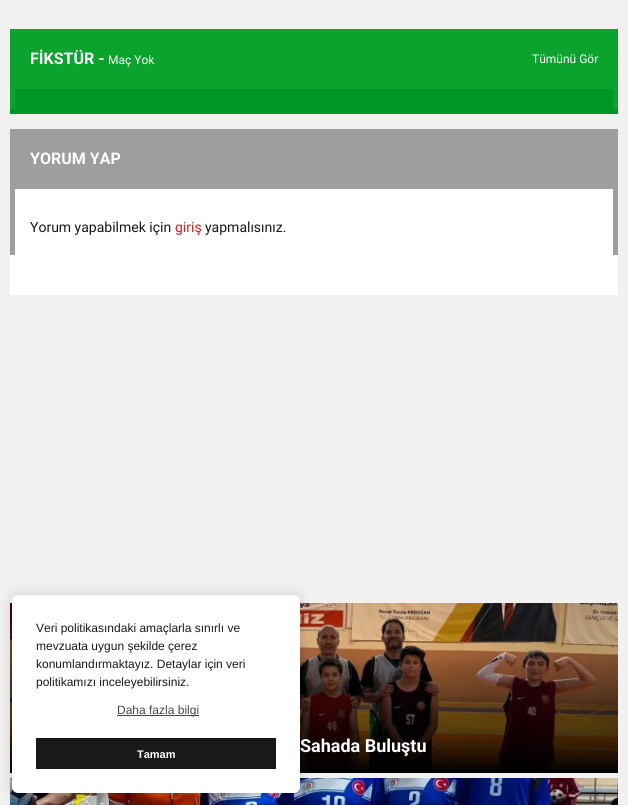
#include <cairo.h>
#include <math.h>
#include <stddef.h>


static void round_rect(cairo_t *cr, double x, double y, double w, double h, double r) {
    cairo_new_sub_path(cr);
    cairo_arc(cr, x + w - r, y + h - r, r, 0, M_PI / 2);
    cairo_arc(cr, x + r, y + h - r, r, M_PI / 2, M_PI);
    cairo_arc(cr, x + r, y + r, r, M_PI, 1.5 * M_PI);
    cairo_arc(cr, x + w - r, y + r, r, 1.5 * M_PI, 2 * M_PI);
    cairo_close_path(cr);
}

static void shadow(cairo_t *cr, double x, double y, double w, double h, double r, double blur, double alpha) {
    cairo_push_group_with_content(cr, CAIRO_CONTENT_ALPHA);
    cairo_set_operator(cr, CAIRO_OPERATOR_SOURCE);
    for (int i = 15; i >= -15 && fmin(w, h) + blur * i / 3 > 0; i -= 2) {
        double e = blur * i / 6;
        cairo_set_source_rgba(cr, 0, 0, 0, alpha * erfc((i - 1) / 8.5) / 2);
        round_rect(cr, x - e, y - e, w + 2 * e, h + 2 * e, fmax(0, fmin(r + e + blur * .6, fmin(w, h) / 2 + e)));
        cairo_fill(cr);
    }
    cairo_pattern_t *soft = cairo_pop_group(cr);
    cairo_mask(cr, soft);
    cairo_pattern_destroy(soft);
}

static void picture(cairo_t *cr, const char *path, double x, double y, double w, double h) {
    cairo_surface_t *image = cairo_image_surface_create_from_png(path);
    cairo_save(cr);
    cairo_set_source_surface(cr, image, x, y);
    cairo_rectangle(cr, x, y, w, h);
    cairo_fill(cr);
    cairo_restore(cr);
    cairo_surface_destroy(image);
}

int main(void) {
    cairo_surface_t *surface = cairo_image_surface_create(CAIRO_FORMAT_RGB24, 628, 805);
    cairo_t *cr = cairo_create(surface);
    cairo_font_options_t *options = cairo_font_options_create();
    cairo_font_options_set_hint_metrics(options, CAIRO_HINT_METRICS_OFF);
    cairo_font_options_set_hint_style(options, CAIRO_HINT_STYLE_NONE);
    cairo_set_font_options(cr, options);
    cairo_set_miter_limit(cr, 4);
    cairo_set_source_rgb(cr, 0.945, 0.945, 0.945);
    cairo_paint(cr);
    cairo_set_source_rgb(cr, 0, 0.588, 0.137);
    cairo_rectangle(cr, 10, 109, 608, 5);
    cairo_fill(cr);
    cairo_set_source_rgb(cr, 0.043, 0.635, 0.18);
    cairo_rectangle(cr, 10, 29, 5, 80);
    cairo_fill(cr);
    cairo_rectangle(cr, 15, 29, 598, 60);
    cairo_fill(cr);
    cairo_select_font_face(cr, "Roboto", CAIRO_FONT_SLANT_NORMAL, CAIRO_FONT_WEIGHT_BOLD);
    cairo_set_font_size(cr, 16);
    cairo_set_source_rgb(cr, 1, 1, 1);
    cairo_move_to(cr, 30, 64);
    cairo_show_text(cr, "FİKSTÜR -");
    cairo_select_font_face(cr, "Roboto", CAIRO_FONT_SLANT_NORMAL, CAIRO_FONT_WEIGHT_NORMAL);
    cairo_set_font_size(cr, 12);
    cairo_move_to(cr, 108, 64);
    cairo_show_text(cr, "Maç Yok");
    cairo_move_to(cr, 532, 63);
    cairo_show_text(cr, "Tümünü Gör");
    cairo_set_source_rgb(cr, 0.043, 0.635, 0.18);
    cairo_rectangle(cr, 613, 29, 5, 80);
    cairo_fill(cr);
    cairo_set_source_rgb(cr, 0, 0.588, 0.137);
    cairo_rectangle(cr, 15, 89, 598, 20);
    cairo_fill(cr);
    cairo_set_source_rgb(cr, 0.62, 0.62, 0.62);
    cairo_rectangle(cr, 10, 129, 608, 60);
    cairo_fill(cr);
    cairo_select_font_face(cr, "Roboto", CAIRO_FONT_SLANT_NORMAL, CAIRO_FONT_WEIGHT_BOLD);
    cairo_set_font_size(cr, 16);
    cairo_set_source_rgb(cr, 1, 1, 1);
    cairo_move_to(cr, 30, 164);
    cairo_show_text(cr, "YORUM YAP");
    cairo_rectangle(cr, 15, 189, 598, 66);
    cairo_fill(cr);
    cairo_set_source_rgb(cr, 0.62, 0.62, 0.62);
    cairo_rectangle(cr, 10, 189, 5, 66);
    cairo_fill(cr);
    cairo_select_font_face(cr, "Roboto", CAIRO_FONT_SLANT_NORMAL, CAIRO_FONT_WEIGHT_NORMAL);
    cairo_set_font_size(cr, 14);
    cairo_set_source_rgb(cr, 0.098, 0.098, 0.098);
    cairo_move_to(cr, 30, 232);
    cairo_show_text(cr, "Yorum yapabilmek için");
    cairo_set_source_rgb(cr, 0.808, 0.125, 0.145);
    cairo_move_to(cr, 175, 232);
    cairo_show_text(cr, "giriş");
    cairo_set_source_rgb(cr, 0.098, 0.098, 0.098);
    cairo_move_to(cr, 205, 232);
    cairo_show_text(cr, "yapmalısınız.");
    cairo_set_source_rgb(cr, 0.62, 0.62, 0.62);
    cairo_rectangle(cr, 613, 189, 5, 66);
    cairo_fill(cr);
    cairo_set_source_rgb(cr, 1, 1, 1);
    cairo_rectangle(cr, 10, 255, 608, 40);
    cairo_fill(cr);
    picture(cr, "img1.png", 10, 603, 608, 170);
    cairo_select_font_face(cr, "Roboto", CAIRO_FONT_SLANT_NORMAL, CAIRO_FONT_WEIGHT_BOLD);
    cairo_set_font_size(cr, 18);
    cairo_move_to(cr, 300, 752);
    cairo_show_text(cr, "Sahada Buluştu");
    picture(cr, "img2.png", 10, 778, 608, 27);
    cairo_set_source_rgb(cr, 0, 0, 0);
    shadow(cr, 12, 597, 288, 198, 6, 6.5, 0.19);
    cairo_set_source_rgb(cr, 1, 1, 1);
    round_rect(cr, 12, 595, 288, 198, 6);
    cairo_fill(cr);
    cairo_select_font_face(cr, "Liberation Sans", CAIRO_FONT_SLANT_NORMAL, CAIRO_FONT_WEIGHT_NORMAL);
    cairo_set_font_size(cr, 12);
    cairo_set_source_rgb(cr, 0.098, 0.098, 0.098);
    cairo_move_to(cr, 36, 632);
    cairo_show_text(cr, "Veri politikasındaki amaçlarla sınırlı ve");
    cairo_move_to(cr, 36, 650);
    cairo_show_text(cr, "mevzuata uygun şekilde çerez");
    cairo_move_to(cr, 36, 668);
    cairo_show_text(cr, "konumlandırmaktayız. Detaylar için veri");
    cairo_move_to(cr, 36, 686);
    cairo_show_text(cr, "politikamızı inceleyebilirsiniz.");
    cairo_set_source_rgb(cr, 0.278, 0.278, 0.278);
    cairo_rectangle(cr, 117, 715, 82, 1);
    cairo_fill(cr);
    cairo_move_to(cr, 117, 714);
    cairo_show_text(cr, "Daha fazla bilgi");
    cairo_set_source_rgb(cr, 0.098, 0.098, 0.098);
    cairo_rectangle(cr, 36, 738, 240, 31);
    cairo_fill(cr);
    cairo_select_font_face(cr, "Liberation Sans", CAIRO_FONT_SLANT_NORMAL, CAIRO_FONT_WEIGHT_BOLD);
    cairo_set_font_size(cr, 11);
    cairo_set_source_rgb(cr, 1, 1, 1);
    cairo_move_to(cr, 137, 758);
    cairo_show_text(cr, "Tamam");
    cairo_surface_write_to_png(surface, "page.png");
    cairo_font_options_destroy(options);
    cairo_destroy(cr);
    cairo_surface_destroy(surface);
    return 0;
}
